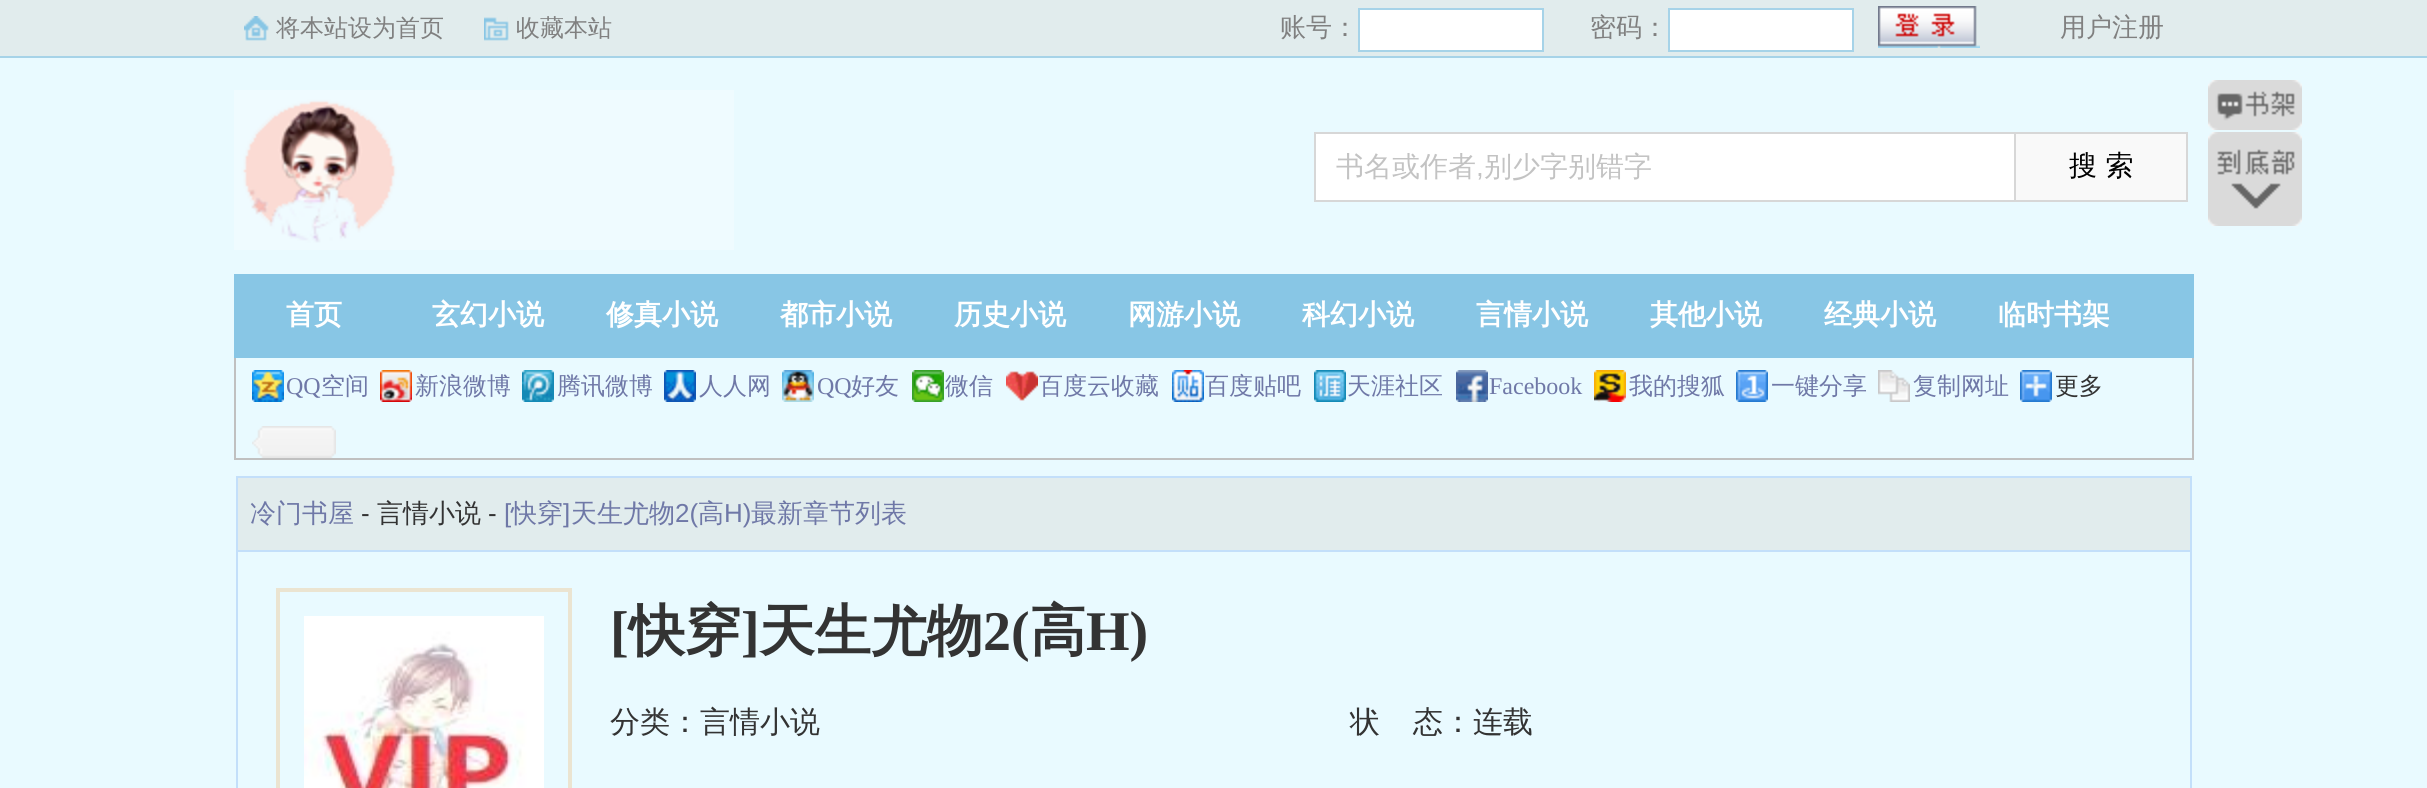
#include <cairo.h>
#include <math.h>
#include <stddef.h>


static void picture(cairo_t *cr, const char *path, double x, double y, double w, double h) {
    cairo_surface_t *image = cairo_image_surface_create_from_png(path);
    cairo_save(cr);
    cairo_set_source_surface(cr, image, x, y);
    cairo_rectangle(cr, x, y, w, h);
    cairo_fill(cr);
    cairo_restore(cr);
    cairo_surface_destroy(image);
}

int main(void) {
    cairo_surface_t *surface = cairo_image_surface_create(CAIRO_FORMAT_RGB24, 2427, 788);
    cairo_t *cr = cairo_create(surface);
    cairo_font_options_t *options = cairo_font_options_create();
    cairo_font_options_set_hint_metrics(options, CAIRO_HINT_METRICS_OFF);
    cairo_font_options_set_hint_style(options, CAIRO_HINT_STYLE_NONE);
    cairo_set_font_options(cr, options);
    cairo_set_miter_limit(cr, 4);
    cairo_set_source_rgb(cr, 0.914, 0.98, 1);
    cairo_paint(cr);
    cairo_set_source_rgb(cr, 0.882, 0.925, 0.929);
    cairo_rectangle(cr, 0, 0, 2427, 56);
    cairo_fill(cr);
    cairo_set_source_rgb(cr, 0.651, 0.827, 0.91);
    cairo_rectangle(cr, 0, 56, 2427, 2);
    cairo_fill(cr);
    picture(cr, "img1.png", 244, 16, 25, 25);
    cairo_select_font_face(cr, "WenQuanYi Zen Hei Medium", CAIRO_FONT_SLANT_NORMAL, CAIRO_FONT_WEIGHT_NORMAL);
    cairo_set_font_size(cr, 24);
    cairo_set_source_rgb(cr, 0.502, 0.502, 0.502);
    cairo_move_to(cr, 276, 36);
    cairo_show_text(cr, "将本站设为首页");
    picture(cr, "img2.png", 484, 17, 25, 24);
    cairo_move_to(cr, 516, 36);
    cairo_show_text(cr, "收藏本站");
    cairo_set_font_size(cr, 26);
    cairo_move_to(cr, 1280, 36);
    cairo_show_text(cr, "账号：");
    cairo_set_source_rgb(cr, 1, 1, 1);
    cairo_rectangle(cr, 1359, 9, 184, 42);
    cairo_fill_preserve(cr);
    cairo_set_source_rgb(cr, 0.651, 0.827, 0.91);
    cairo_stroke(cr);
    cairo_set_source_rgb(cr, 0.502, 0.502, 0.502);
    cairo_move_to(cr, 1590, 36);
    cairo_show_text(cr, "密码：");
    cairo_set_source_rgb(cr, 1, 1, 1);
    cairo_rectangle(cr, 1669, 9, 184, 42);
    cairo_fill_preserve(cr);
    cairo_set_source_rgb(cr, 0.651, 0.827, 0.91);
    cairo_stroke(cr);
    picture(cr, "img3.png", 1878, 6, 102, 42);
    cairo_set_source_rgb(cr, 0.502, 0.502, 0.502);
    cairo_move_to(cr, 2060, 36);
    cairo_show_text(cr, "用户注册");
    picture(cr, "img4.png", 234, 90, 500, 160);
    cairo_set_source_rgb(cr, 1, 1, 1);
    cairo_rectangle(cr, 1316, 134, 698, 66);
    cairo_fill(cr);
    cairo_set_source_rgb(cr, 0.843, 0.843, 0.843);
    cairo_rectangle(cr, 1314, 132, 700, 2);
    cairo_fill(cr);
    cairo_rectangle(cr, 1314, 200, 700, 2);
    cairo_fill(cr);
    cairo_rectangle(cr, 1314, 132, 2, 70);
    cairo_fill(cr);
    cairo_set_font_size(cr, 28);
    cairo_set_source_rgb(cr, 0.765, 0.765, 0.765);
    cairo_move_to(cr, 1336, 176);
    cairo_show_text(cr, "书名或作者");
    cairo_select_font_face(cr, "Liberation Sans", CAIRO_FONT_SLANT_NORMAL, CAIRO_FONT_WEIGHT_NORMAL);
    cairo_move_to(cr, 1476, 176);
    cairo_show_text(cr, ",");
    cairo_select_font_face(cr, "WenQuanYi Zen Hei Medium", CAIRO_FONT_SLANT_NORMAL, CAIRO_FONT_WEIGHT_NORMAL);
    cairo_move_to(cr, 1484, 176);
    cairo_show_text(cr, "别少字别错字");
    cairo_rectangle(cr, 2015, 133, 172, 68);
    cairo_set_source_rgb(cr, 0.843, 0.843, 0.843);
    cairo_stroke(cr);
    cairo_set_source_rgb(cr, 0.976, 0.976, 0.976);
    cairo_rectangle(cr, 2016, 134, 170, 66);
    cairo_fill(cr);
    cairo_set_source_rgb(cr, 0, 0, 0);
    cairo_move_to(cr, 2069, 175);
    cairo_show_text(cr, "搜 索");
    picture(cr, "img5.png", 2208, 80, 94, 50);
    picture(cr, "img6.png", 2208, 132, 94, 94);
    cairo_set_source_rgb(cr, 0.533, 0.776, 0.898);
    cairo_rectangle(cr, 234, 274, 1960, 84);
    cairo_fill(cr);
    cairo_select_font_face(cr, "WenQuanYi Zen Hei", CAIRO_FONT_SLANT_NORMAL, CAIRO_FONT_WEIGHT_BOLD);
    cairo_set_source_rgb(cr, 1, 1, 1);
    cairo_move_to(cr, 286, 324);
    cairo_show_text(cr, "首页");
    cairo_move_to(cr, 432, 324);
    cairo_show_text(cr, "玄幻小说");
    cairo_move_to(cr, 606, 324);
    cairo_show_text(cr, "修真小说");
    cairo_move_to(cr, 780, 324);
    cairo_show_text(cr, "都市小说");
    cairo_move_to(cr, 954, 324);
    cairo_show_text(cr, "历史小说");
    cairo_move_to(cr, 1128, 324);
    cairo_show_text(cr, "网游小说");
    cairo_move_to(cr, 1302, 324);
    cairo_show_text(cr, "科幻小说");
    cairo_move_to(cr, 1476, 324);
    cairo_show_text(cr, "言情小说");
    cairo_move_to(cr, 1650, 324);
    cairo_show_text(cr, "其他小说");
    cairo_move_to(cr, 1824, 324);
    cairo_show_text(cr, "经典小说");
    cairo_move_to(cr, 1998, 324);
    cairo_show_text(cr, "临时书架");
    cairo_set_source_rgb(cr, 0.753, 0.753, 0.753);
    cairo_rectangle(cr, 2192, 358, 2, 102);
    cairo_fill(cr);
    cairo_rectangle(cr, 234, 458, 1960, 2);
    cairo_fill(cr);
    cairo_rectangle(cr, 234, 358, 2, 102);
    cairo_fill(cr);
    picture(cr, "img7.png", 252, 370, 32, 32);
    cairo_select_font_face(cr, "Liberation Serif", CAIRO_FONT_SLANT_NORMAL, CAIRO_FONT_WEIGHT_NORMAL);
    cairo_set_font_size(cr, 24);
    cairo_set_source_rgb(cr, 0.435, 0.471, 0.655);
    cairo_move_to(cr, 286, 394);
    cairo_show_text(cr, "QQ");
    cairo_select_font_face(cr, "WenQuanYi Zen Hei Medium", CAIRO_FONT_SLANT_NORMAL, CAIRO_FONT_WEIGHT_NORMAL);
    cairo_move_to(cr, 321, 394);
    cairo_show_text(cr, "空间");
    picture(cr, "img8.png", 380, 370, 32, 32);
    cairo_move_to(cr, 415, 394);
    cairo_show_text(cr, "新浪微博");
    picture(cr, "img9.png", 522, 370, 32, 32);
    cairo_move_to(cr, 557, 394);
    cairo_show_text(cr, "腾讯微博");
    picture(cr, "img10.png", 664, 370, 32, 32);
    cairo_move_to(cr, 699, 394);
    cairo_show_text(cr, "人人网");
    picture(cr, "img11.png", 782, 370, 32, 32);
    cairo_select_font_face(cr, "Liberation Serif", CAIRO_FONT_SLANT_NORMAL, CAIRO_FONT_WEIGHT_NORMAL);
    cairo_move_to(cr, 817, 394);
    cairo_show_text(cr, "QQ");
    cairo_select_font_face(cr, "WenQuanYi Zen Hei Medium", CAIRO_FONT_SLANT_NORMAL, CAIRO_FONT_WEIGHT_NORMAL);
    cairo_move_to(cr, 851, 394);
    cairo_show_text(cr, "好友");
    picture(cr, "img12.png", 912, 370, 32, 32);
    cairo_move_to(cr, 945, 394);
    cairo_show_text(cr, "微信");
    picture(cr, "img13.png", 1006, 371, 32, 30);
    cairo_move_to(cr, 1039, 394);
    cairo_show_text(cr, "百度云收藏");
    picture(cr, "img14.png", 1172, 370, 32, 32);
    cairo_move_to(cr, 1205, 394);
    cairo_show_text(cr, "百度贴吧");
    picture(cr, "img15.png", 1314, 370, 32, 32);
    cairo_move_to(cr, 1347, 394);
    cairo_show_text(cr, "天涯社区");
    picture(cr, "img16.png", 1456, 370, 32, 32);
    cairo_select_font_face(cr, "Liberation Serif", CAIRO_FONT_SLANT_NORMAL, CAIRO_FONT_WEIGHT_NORMAL);
    cairo_move_to(cr, 1489, 394);
    cairo_show_text(cr, "Facebook");
    picture(cr, "img17.png", 1594, 370, 32, 32);
    cairo_select_font_face(cr, "WenQuanYi Zen Hei Medium", CAIRO_FONT_SLANT_NORMAL, CAIRO_FONT_WEIGHT_NORMAL);
    cairo_move_to(cr, 1629, 394);
    cairo_show_text(cr, "我的搜狐");
    picture(cr, "img18.png", 1736, 370, 32, 32);
    cairo_move_to(cr, 1771, 394);
    cairo_show_text(cr, "一键分享");
    picture(cr, "img19.png", 1878, 370, 32, 32);
    cairo_move_to(cr, 1913, 394);
    cairo_show_text(cr, "复制网址");
    picture(cr, "img20.png", 2020, 370, 32, 32);
    cairo_set_source_rgb(cr, 0.2, 0.2, 0.2);
    cairo_move_to(cr, 2055, 394);
    cairo_show_text(cr, "更多");
    picture(cr, "img21.png", 252, 426, 84, 32);
    cairo_rectangle(cr, 237, 477, 1954, 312);
    cairo_set_source_rgb(cr, 0.765, 0.875, 0.98);
    cairo_stroke(cr);
    cairo_rectangle(cr, 238, 550, 1952, 2);
    cairo_fill(cr);
    cairo_set_source_rgb(cr, 0.882, 0.925, 0.929);
    cairo_rectangle(cr, 238, 478, 1952, 72);
    cairo_fill(cr);
    cairo_set_font_size(cr, 26);
    cairo_set_source_rgb(cr, 0.435, 0.471, 0.655);
    cairo_move_to(cr, 250, 522);
    cairo_show_text(cr, "冷门书屋");
    cairo_select_font_face(cr, "Liberation Sans", CAIRO_FONT_SLANT_NORMAL, CAIRO_FONT_WEIGHT_NORMAL);
    cairo_set_source_rgb(cr, 0.2, 0.2, 0.2);
    cairo_move_to(cr, 361, 522);
    cairo_show_text(cr, "-");
    cairo_select_font_face(cr, "WenQuanYi Zen Hei Medium", CAIRO_FONT_SLANT_NORMAL, CAIRO_FONT_WEIGHT_NORMAL);
    cairo_move_to(cr, 377, 522);
    cairo_show_text(cr, "言情小说");
    cairo_select_font_face(cr, "Liberation Sans", CAIRO_FONT_SLANT_NORMAL, CAIRO_FONT_WEIGHT_NORMAL);
    cairo_move_to(cr, 488, 522);
    cairo_show_text(cr, "-");
    cairo_set_source_rgb(cr, 0.435, 0.471, 0.655);
    cairo_move_to(cr, 504, 522);
    cairo_show_text(cr, "[");
    cairo_select_font_face(cr, "WenQuanYi Zen Hei Medium", CAIRO_FONT_SLANT_NORMAL, CAIRO_FONT_WEIGHT_NORMAL);
    cairo_move_to(cr, 511, 522);
    cairo_show_text(cr, "快穿");
    cairo_select_font_face(cr, "Liberation Sans", CAIRO_FONT_SLANT_NORMAL, CAIRO_FONT_WEIGHT_NORMAL);
    cairo_move_to(cr, 563, 522);
    cairo_show_text(cr, "]");
    cairo_select_font_face(cr, "WenQuanYi Zen Hei Medium", CAIRO_FONT_SLANT_NORMAL, CAIRO_FONT_WEIGHT_NORMAL);
    cairo_move_to(cr, 571, 522);
    cairo_show_text(cr, "天生尤物");
    cairo_select_font_face(cr, "Liberation Sans", CAIRO_FONT_SLANT_NORMAL, CAIRO_FONT_WEIGHT_NORMAL);
    cairo_move_to(cr, 675, 522);
    cairo_show_text(cr, "2(");
    cairo_select_font_face(cr, "WenQuanYi Zen Hei Medium", CAIRO_FONT_SLANT_NORMAL, CAIRO_FONT_WEIGHT_NORMAL);
    cairo_move_to(cr, 698, 522);
    cairo_show_text(cr, "高");
    cairo_select_font_face(cr, "Liberation Sans", CAIRO_FONT_SLANT_NORMAL, CAIRO_FONT_WEIGHT_NORMAL);
    cairo_move_to(cr, 724, 522);
    cairo_show_text(cr, "H)");
    cairo_select_font_face(cr, "WenQuanYi Zen Hei Medium", CAIRO_FONT_SLANT_NORMAL, CAIRO_FONT_WEIGHT_NORMAL);
    cairo_move_to(cr, 751, 522);
    cairo_show_text(cr, "最新章节列表");
    cairo_rectangle(cr, 278, 590, 292, 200);
    cairo_set_source_rgb(cr, 0.918, 0.894, 0.82);
    cairo_set_line_width(cr, 4);
    cairo_stroke(cr);
    picture(cr, "img22.png", 304, 616, 240, 172);
    cairo_select_font_face(cr, "Liberation Serif", CAIRO_FONT_SLANT_NORMAL, CAIRO_FONT_WEIGHT_BOLD);
    cairo_set_font_size(cr, 56);
    cairo_set_source_rgb(cr, 0.2, 0.2, 0.2);
    cairo_move_to(cr, 610, 650);
    cairo_show_text(cr, "[");
    cairo_select_font_face(cr, "WenQuanYi Zen Hei", CAIRO_FONT_SLANT_NORMAL, CAIRO_FONT_WEIGHT_BOLD);
    cairo_move_to(cr, 629, 650);
    cairo_show_text(cr, "快穿");
    cairo_select_font_face(cr, "Liberation Serif", CAIRO_FONT_SLANT_NORMAL, CAIRO_FONT_WEIGHT_BOLD);
    cairo_move_to(cr, 741, 650);
    cairo_show_text(cr, "]");
    cairo_select_font_face(cr, "WenQuanYi Zen Hei", CAIRO_FONT_SLANT_NORMAL, CAIRO_FONT_WEIGHT_BOLD);
    cairo_move_to(cr, 759, 650);
    cairo_show_text(cr, "天生尤物");
    cairo_select_font_face(cr, "Liberation Serif", CAIRO_FONT_SLANT_NORMAL, CAIRO_FONT_WEIGHT_BOLD);
    cairo_move_to(cr, 983, 650);
    cairo_show_text(cr, "2(");
    cairo_select_font_face(cr, "WenQuanYi Zen Hei", CAIRO_FONT_SLANT_NORMAL, CAIRO_FONT_WEIGHT_BOLD);
    cairo_move_to(cr, 1030, 650);
    cairo_show_text(cr, "高");
    cairo_select_font_face(cr, "Liberation Serif", CAIRO_FONT_SLANT_NORMAL, CAIRO_FONT_WEIGHT_BOLD);
    cairo_move_to(cr, 1086, 650);
    cairo_show_text(cr, "H)");
    cairo_select_font_face(cr, "WenQuanYi Zen Hei Medium", CAIRO_FONT_SLANT_NORMAL, CAIRO_FONT_WEIGHT_NORMAL);
    cairo_set_font_size(cr, 30);
    cairo_move_to(cr, 610, 732);
    cairo_show_text(cr, "分类：言情小说");
    cairo_move_to(cr, 1350, 732);
    cairo_show_text(cr, "状");
    cairo_move_to(cr, 1413, 732);
    cairo_show_text(cr, "态：连载");
    cairo_surface_write_to_png(surface, "page.png");
    cairo_font_options_destroy(options);
    cairo_destroy(cr);
    cairo_surface_destroy(surface);
    return 0;
}
